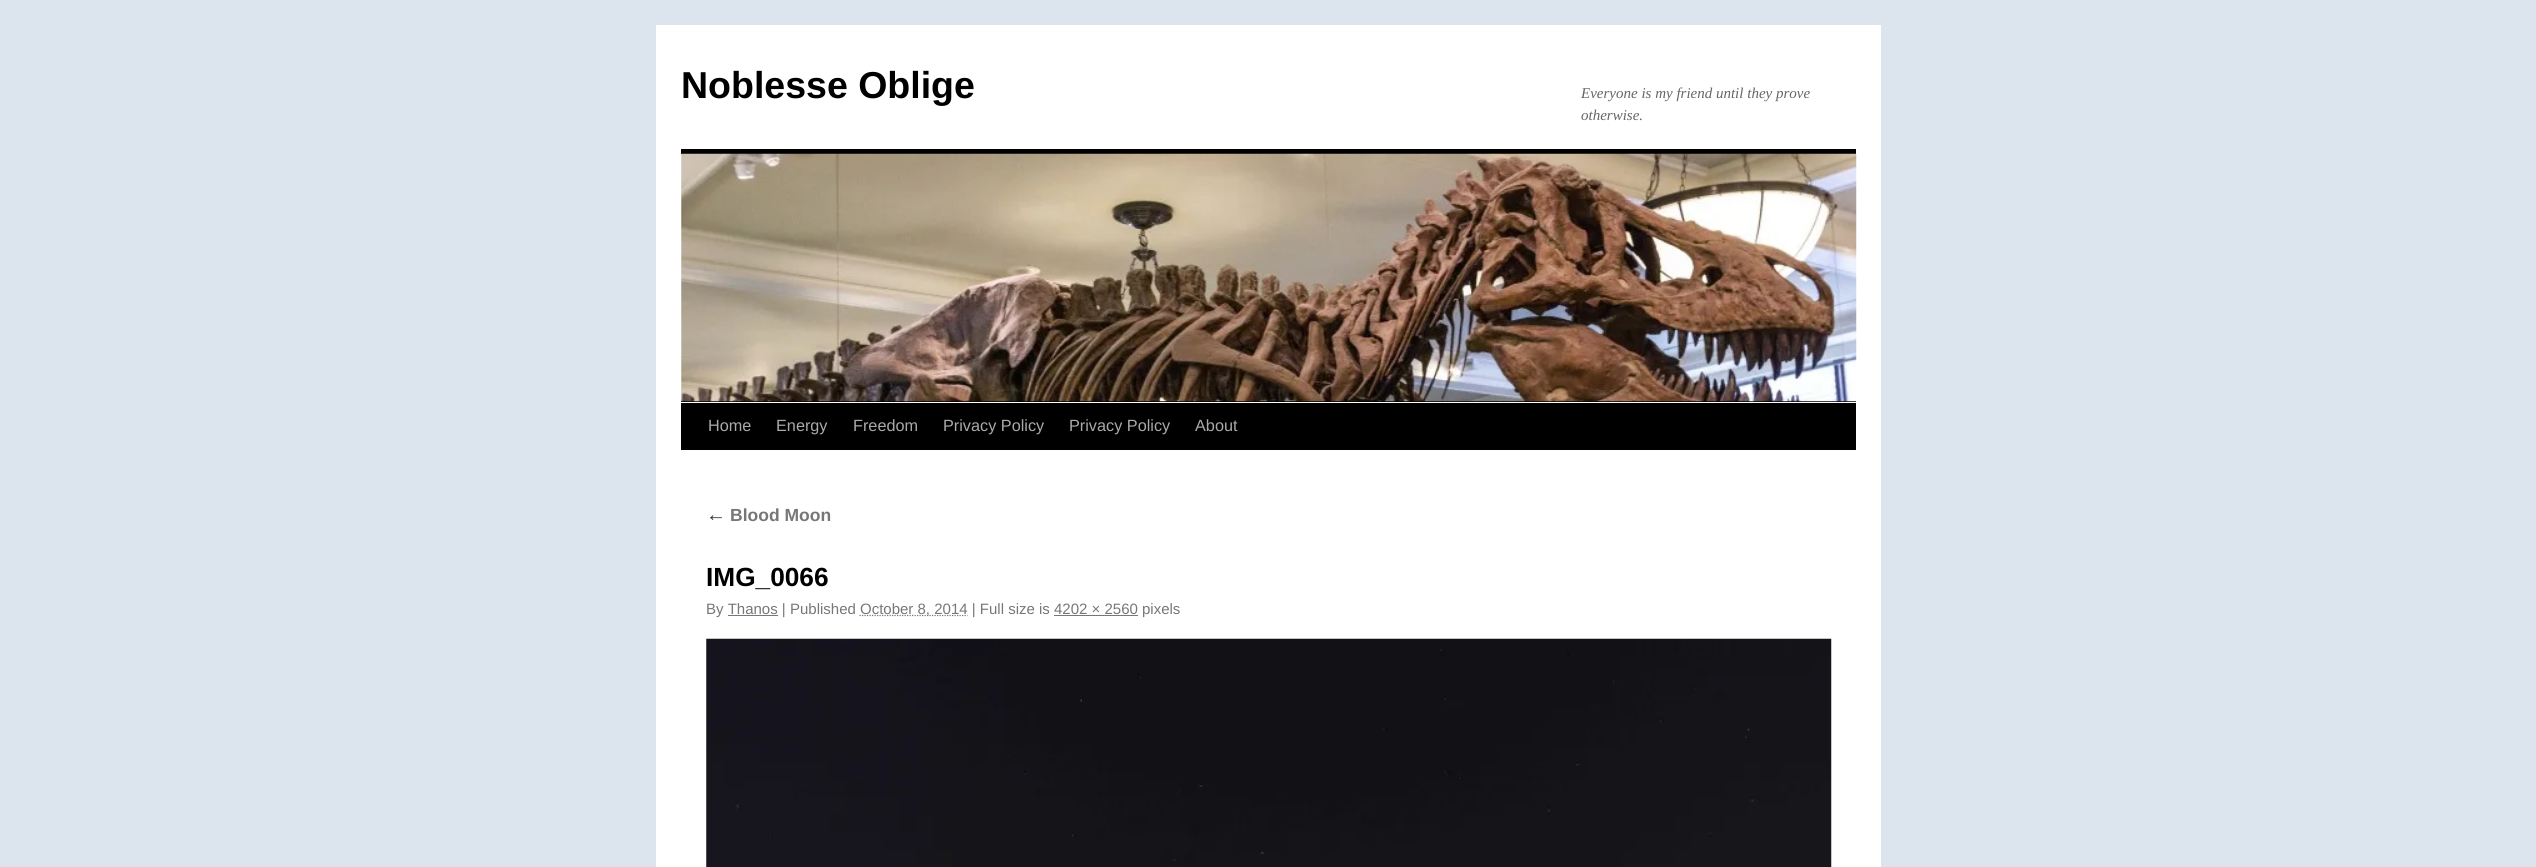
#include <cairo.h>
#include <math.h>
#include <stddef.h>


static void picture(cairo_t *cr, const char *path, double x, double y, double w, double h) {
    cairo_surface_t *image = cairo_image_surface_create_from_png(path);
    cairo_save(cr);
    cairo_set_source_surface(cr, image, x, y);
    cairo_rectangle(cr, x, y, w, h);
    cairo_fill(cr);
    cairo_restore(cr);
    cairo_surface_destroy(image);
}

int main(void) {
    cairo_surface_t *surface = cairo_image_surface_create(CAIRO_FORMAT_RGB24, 2536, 867);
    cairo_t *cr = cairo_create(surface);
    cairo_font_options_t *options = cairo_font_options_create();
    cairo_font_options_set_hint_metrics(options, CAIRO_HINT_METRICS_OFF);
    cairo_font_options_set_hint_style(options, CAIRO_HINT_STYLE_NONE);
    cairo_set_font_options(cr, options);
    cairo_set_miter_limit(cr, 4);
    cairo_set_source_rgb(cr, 0.863, 0.894, 0.929);
    cairo_paint(cr);
    cairo_set_source_rgb(cr, 1, 1, 1);
    cairo_rectangle(cr, 656, 25, 1225, 842);
    cairo_fill(cr);
    cairo_select_font_face(cr, "Liberation Sans", CAIRO_FONT_SLANT_NORMAL, CAIRO_FONT_WEIGHT_BOLD);
    cairo_set_font_size(cr, 37.5);
    cairo_set_source_rgb(cr, 0, 0, 0);
    cairo_move_to(cr, 681, 98);
    cairo_show_text(cr, "Noblesse Oblige");
    cairo_select_font_face(cr, "Liberation Serif", CAIRO_FONT_SLANT_ITALIC, CAIRO_FONT_WEIGHT_NORMAL);
    cairo_set_font_size(cr, 15);
    cairo_set_source_rgb(cr, 0.4, 0.4, 0.4);
    cairo_move_to(cr, 1581, 98);
    cairo_show_text(cr, "Everyone is my friend until they prove");
    cairo_move_to(cr, 1581, 120);
    cairo_show_text(cr, "otherwise.");
    cairo_set_source_rgb(cr, 0, 0, 0);
    cairo_rectangle(cr, 681, 149, 1175, 5);
    cairo_fill(cr);
    cairo_rectangle(cr, 681, 401, 1175, 1);
    cairo_fill(cr);
    picture(cr, "img1.png", 681, 153, 1176, 249);
    cairo_rectangle(cr, 681, 403, 1175, 47);
    cairo_fill(cr);
    cairo_select_font_face(cr, "Liberation Sans", CAIRO_FONT_SLANT_NORMAL, CAIRO_FONT_WEIGHT_NORMAL);
    cairo_set_font_size(cr, 16.25);
    cairo_set_source_rgb(cr, 0.667, 0.667, 0.667);
    cairo_move_to(cr, 708, 431);
    cairo_show_text(cr, "Home");
    cairo_move_to(cr, 776, 431);
    cairo_show_text(cr, "Energy");
    cairo_move_to(cr, 853, 431);
    cairo_show_text(cr, "Freedom");
    cairo_move_to(cr, 943, 431);
    cairo_show_text(cr, "Privacy Policy");
    cairo_move_to(cr, 1069, 431);
    cairo_show_text(cr, "Privacy Policy");
    cairo_move_to(cr, 1195, 431);
    cairo_show_text(cr, "About");
    cairo_select_font_face(cr, "Liberation Serif", CAIRO_FONT_SLANT_ITALIC, CAIRO_FONT_WEIGHT_NORMAL);
    cairo_set_font_size(cr, 20);
    cairo_set_source_rgb(cr, 0.2, 0.2, 0.2);
    cairo_move_to(cr, 706, 521);
    cairo_show_text(cr, "←");
    cairo_select_font_face(cr, "Liberation Sans", CAIRO_FONT_SLANT_NORMAL, CAIRO_FONT_WEIGHT_BOLD);
    cairo_set_font_size(cr, 17.5);
    cairo_set_source_rgb(cr, 0.467, 0.467, 0.467);
    cairo_move_to(cr, 730, 521);
    cairo_show_text(cr, "Blood Moon");
    cairo_set_font_size(cr, 26.25);
    cairo_set_source_rgb(cr, 0, 0, 0);
    cairo_move_to(cr, 706, 586);
    cairo_show_text(cr, "IMG_0066");
    cairo_select_font_face(cr, "Liberation Sans", CAIRO_FONT_SLANT_NORMAL, CAIRO_FONT_WEIGHT_NORMAL);
    cairo_set_font_size(cr, 15);
    cairo_set_source_rgb(cr, 0.467, 0.467, 0.467);
    cairo_move_to(cr, 706, 614);
    cairo_show_text(cr, "By Thanos | Published");
    cairo_new_path(cr);
    cairo_move_to(cr, 859.5, 615.5);
    cairo_line_to(cr, 967.5, 615.5);
    cairo_set_line_width(cr, 1.2);
    cairo_set_dash(cr, (double[]){1.25, 1.25}, 2, 0);
    cairo_stroke(cr);
    cairo_move_to(cr, 860, 614);
    cairo_show_text(cr, "October 8, 2014 | Full size is 4202 × 2560 pixels");
    cairo_rectangle(cr, 728, 615, 50, 1);
    cairo_fill(cr);
    cairo_rectangle(cr, 1054, 615, 84, 1);
    cairo_fill(cr);
    picture(cr, "img2.png", 706, 638, 1126, 229);
    cairo_surface_write_to_png(surface, "page.png");
    cairo_font_options_destroy(options);
    cairo_destroy(cr);
    cairo_surface_destroy(surface);
    return 0;
}
